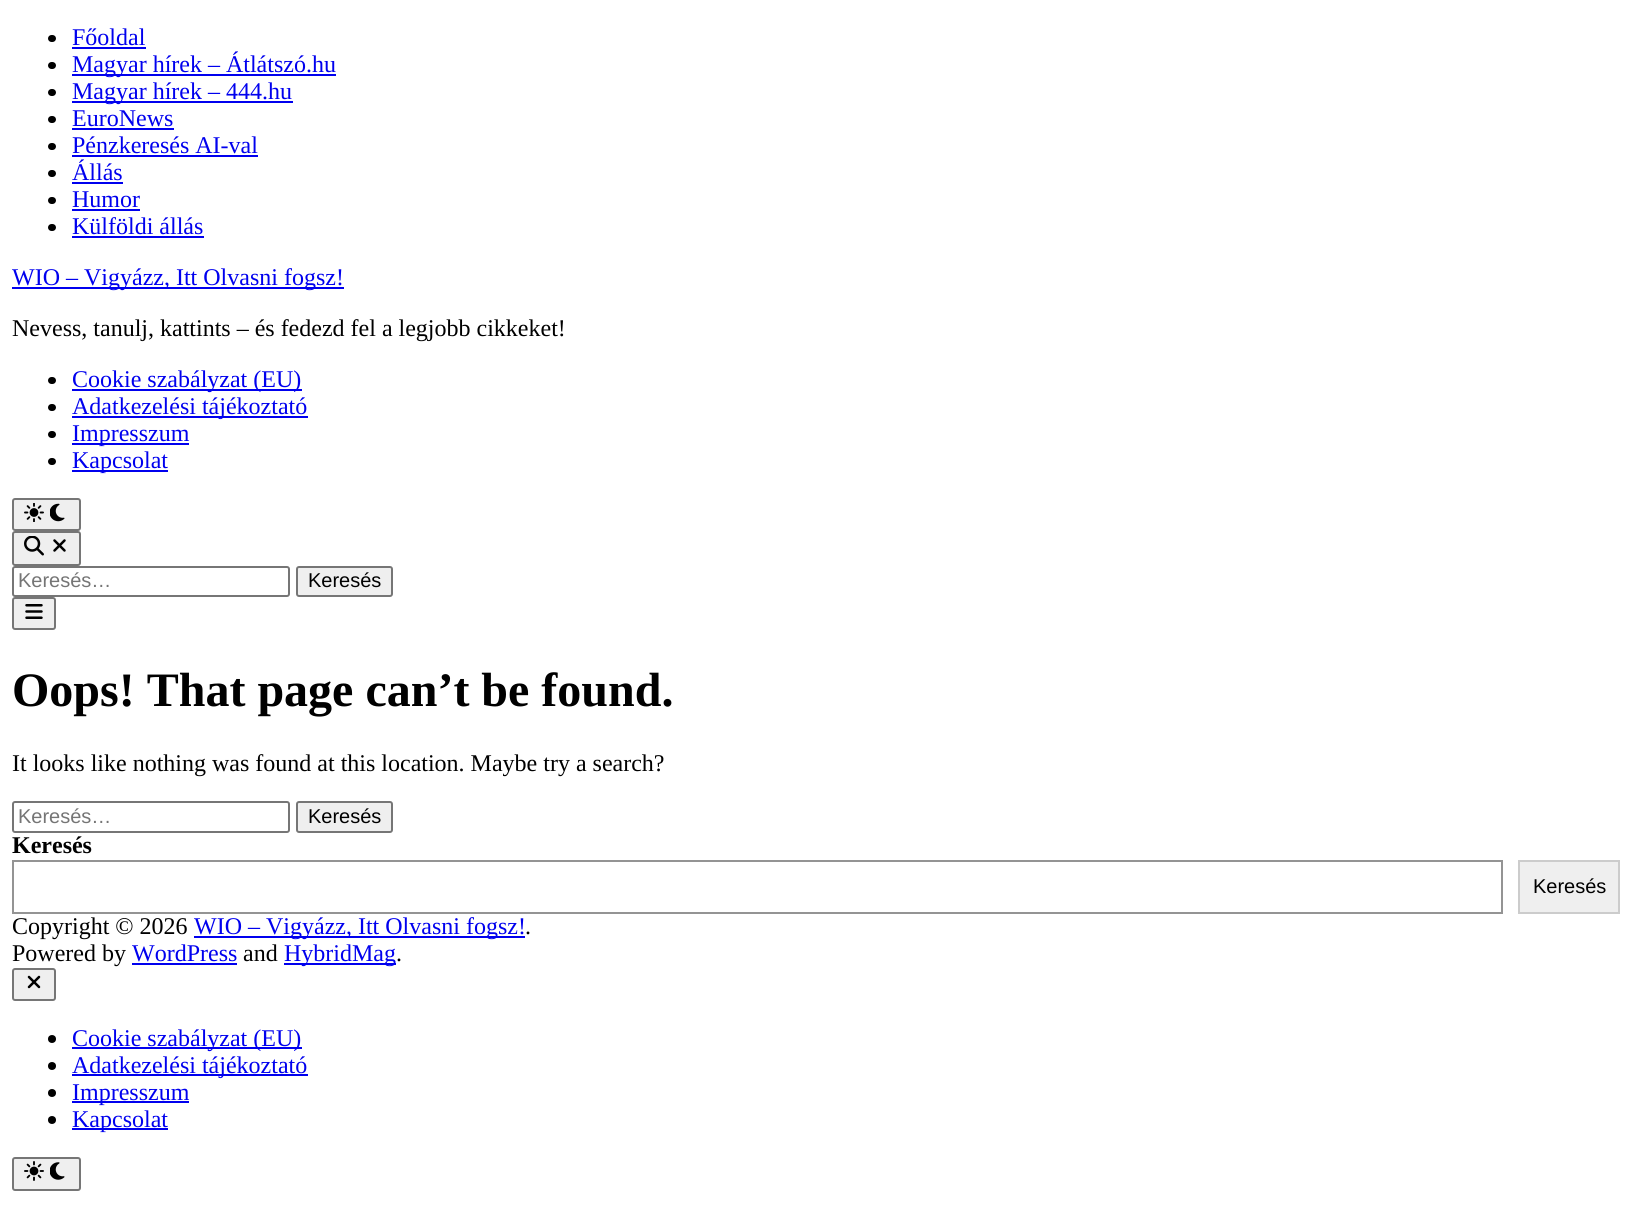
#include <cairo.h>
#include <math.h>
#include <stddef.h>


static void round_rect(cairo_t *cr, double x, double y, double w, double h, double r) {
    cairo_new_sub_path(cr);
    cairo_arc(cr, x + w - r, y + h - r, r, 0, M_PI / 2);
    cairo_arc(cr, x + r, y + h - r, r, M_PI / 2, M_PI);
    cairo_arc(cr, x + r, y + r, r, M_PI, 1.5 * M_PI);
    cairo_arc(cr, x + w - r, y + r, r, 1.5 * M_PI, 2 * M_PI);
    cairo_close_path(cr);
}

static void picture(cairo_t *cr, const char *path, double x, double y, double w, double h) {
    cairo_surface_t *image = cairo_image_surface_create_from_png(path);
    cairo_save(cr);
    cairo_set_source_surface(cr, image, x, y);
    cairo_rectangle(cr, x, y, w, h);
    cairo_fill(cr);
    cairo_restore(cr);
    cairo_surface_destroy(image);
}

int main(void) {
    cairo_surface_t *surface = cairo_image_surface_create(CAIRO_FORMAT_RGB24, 1632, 1222);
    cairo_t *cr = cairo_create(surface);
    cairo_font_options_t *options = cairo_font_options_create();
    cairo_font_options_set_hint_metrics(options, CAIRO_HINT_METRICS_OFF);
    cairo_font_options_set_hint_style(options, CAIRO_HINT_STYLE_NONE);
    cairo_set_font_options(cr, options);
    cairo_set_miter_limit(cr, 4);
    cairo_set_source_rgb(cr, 1, 1, 1);
    cairo_paint(cr);
    cairo_set_source_rgb(cr, 0, 0, 0);
    round_rect(cr, 48, 35, 8, 7, 3.5);
    cairo_fill(cr);
    cairo_select_font_face(cr, "Liberation Serif", CAIRO_FONT_SLANT_NORMAL, CAIRO_FONT_WEIGHT_NORMAL);
    cairo_set_font_size(cr, 24);
    cairo_set_source_rgb(cr, 0, 0, 0.933);
    cairo_move_to(cr, 72, 45);
    cairo_show_text(cr, "Főoldal");
    cairo_rectangle(cr, 72, 47, 74, 2);
    cairo_fill(cr);
    cairo_set_source_rgb(cr, 0, 0, 0);
    round_rect(cr, 48, 62, 8, 7, 3.5);
    cairo_fill(cr);
    cairo_set_source_rgb(cr, 0, 0, 0.933);
    cairo_rectangle(cr, 72, 74, 264, 2);
    cairo_fill(cr);
    cairo_move_to(cr, 72, 72);
    cairo_show_text(cr, "Magyar hírek – Átlátszó.hu");
    cairo_set_source_rgb(cr, 0, 0, 0);
    round_rect(cr, 48, 89, 8, 7, 3.5);
    cairo_fill(cr);
    cairo_set_source_rgb(cr, 0, 0, 0.933);
    cairo_rectangle(cr, 72, 101, 221, 2);
    cairo_fill(cr);
    cairo_move_to(cr, 72, 99);
    cairo_show_text(cr, "Magyar hírek – 444.hu");
    cairo_set_source_rgb(cr, 0, 0, 0);
    round_rect(cr, 48, 116, 8, 7, 3.5);
    cairo_fill(cr);
    cairo_set_source_rgb(cr, 0, 0, 0.933);
    cairo_move_to(cr, 72, 126);
    cairo_show_text(cr, "EuroNews");
    cairo_rectangle(cr, 72, 128, 102, 2);
    cairo_fill(cr);
    cairo_set_source_rgb(cr, 0, 0, 0);
    round_rect(cr, 48, 143, 8, 7, 3.5);
    cairo_fill(cr);
    cairo_set_source_rgb(cr, 0, 0, 0.933);
    cairo_move_to(cr, 72, 153);
    cairo_show_text(cr, "Pénzkeresés AI-val");
    cairo_rectangle(cr, 72, 155, 186, 2);
    cairo_fill(cr);
    cairo_set_source_rgb(cr, 0, 0, 0);
    round_rect(cr, 48, 170, 8, 7, 3.5);
    cairo_fill(cr);
    cairo_set_source_rgb(cr, 0, 0, 0.933);
    cairo_move_to(cr, 72, 180);
    cairo_show_text(cr, "Állás");
    cairo_rectangle(cr, 72, 182, 51, 2);
    cairo_fill(cr);
    cairo_set_source_rgb(cr, 0, 0, 0);
    round_rect(cr, 48, 197, 8, 7, 3.5);
    cairo_fill(cr);
    cairo_set_source_rgb(cr, 0, 0, 0.933);
    cairo_move_to(cr, 72, 207);
    cairo_show_text(cr, "Humor");
    cairo_rectangle(cr, 72, 209, 68, 2);
    cairo_fill(cr);
    cairo_set_source_rgb(cr, 0, 0, 0);
    round_rect(cr, 48, 224, 8, 7, 3.5);
    cairo_fill(cr);
    cairo_set_source_rgb(cr, 0, 0, 0.933);
    cairo_move_to(cr, 72, 234);
    cairo_show_text(cr, "Külföldi állás");
    cairo_rectangle(cr, 72, 236, 132, 2);
    cairo_fill(cr);
    cairo_rectangle(cr, 12, 287, 332, 2);
    cairo_fill(cr);
    cairo_move_to(cr, 12, 285);
    cairo_show_text(cr, "WIO – Vigyázz, Itt Olvasni fogsz!");
    cairo_set_source_rgb(cr, 0, 0, 0);
    cairo_move_to(cr, 12, 336);
    cairo_show_text(cr, "Nevess, tanulj, kattints – és fedezd fel a legjobb cikkeket!");
    round_rect(cr, 48, 377, 8, 7, 3.5);
    cairo_fill(cr);
    cairo_set_source_rgb(cr, 0, 0, 0.933);
    cairo_rectangle(cr, 72, 389, 230, 2);
    cairo_fill(cr);
    cairo_move_to(cr, 72, 387);
    cairo_show_text(cr, "Cookie szabályzat (EU)");
    cairo_set_source_rgb(cr, 0, 0, 0);
    round_rect(cr, 48, 404, 8, 7, 3.5);
    cairo_fill(cr);
    cairo_set_source_rgb(cr, 0, 0, 0.933);
    cairo_rectangle(cr, 72, 416, 236, 2);
    cairo_fill(cr);
    cairo_move_to(cr, 72, 414);
    cairo_show_text(cr, "Adatkezelési tájékoztató");
    cairo_set_source_rgb(cr, 0, 0, 0);
    round_rect(cr, 48, 431, 8, 7, 3.5);
    cairo_fill(cr);
    cairo_set_source_rgb(cr, 0, 0, 0.933);
    cairo_rectangle(cr, 72, 443, 117, 2);
    cairo_fill(cr);
    cairo_move_to(cr, 72, 441);
    cairo_show_text(cr, "Impresszum");
    cairo_set_source_rgb(cr, 0, 0, 0);
    round_rect(cr, 48, 458, 8, 7, 3.5);
    cairo_fill(cr);
    cairo_set_source_rgb(cr, 0, 0, 0.933);
    cairo_rectangle(cr, 72, 470, 96, 2);
    cairo_fill(cr);
    cairo_move_to(cr, 72, 468);
    cairo_show_text(cr, "Kapcsolat");
    cairo_set_source_rgb(cr, 0.937, 0.937, 0.937);
    round_rect(cr, 13, 499, 67, 31, 2);
    cairo_fill_preserve(cr);
    cairo_set_source_rgb(cr, 0.463, 0.463, 0.463);
    cairo_stroke(cr);
    picture(cr, "img1.png", 24, 503, 20, 19);
    picture(cr, "img2.png", 50, 503, 15, 19);
    cairo_set_source_rgb(cr, 0.937, 0.937, 0.937);
    round_rect(cr, 13, 532, 67, 33, 2);
    cairo_fill_preserve(cr);
    cairo_set_source_rgb(cr, 0.463, 0.463, 0.463);
    cairo_stroke(cr);
    picture(cr, "img3.png", 24, 536, 20, 20);
    picture(cr, "img4.png", 53, 539, 13, 13);
    round_rect(cr, 13, 567, 276, 29, 2);
    cairo_stroke(cr);
    cairo_select_font_face(cr, "Liberation Sans", CAIRO_FONT_SLANT_NORMAL, CAIRO_FONT_WEIGHT_NORMAL);
    cairo_set_font_size(cr, 20);
    cairo_set_source_rgb(cr, 0.459, 0.459, 0.459);
    cairo_move_to(cr, 18, 587);
    cairo_show_text(cr, "Keresés…");
    cairo_set_source_rgb(cr, 0.937, 0.937, 0.937);
    round_rect(cr, 297, 567, 95, 29, 2);
    cairo_fill_preserve(cr);
    cairo_set_source_rgb(cr, 0.463, 0.463, 0.463);
    cairo_stroke(cr);
    cairo_set_source_rgb(cr, 0, 0, 0);
    cairo_move_to(cr, 308, 587);
    cairo_show_text(cr, "Keresés");
    cairo_set_source_rgb(cr, 0.937, 0.937, 0.937);
    round_rect(cr, 13, 598, 42, 31, 2);
    cairo_fill_preserve(cr);
    cairo_set_source_rgb(cr, 0.463, 0.463, 0.463);
    cairo_stroke(cr);
    picture(cr, "img5.png", 25, 604, 18, 15);
    cairo_select_font_face(cr, "Liberation Serif", CAIRO_FONT_SLANT_NORMAL, CAIRO_FONT_WEIGHT_BOLD);
    cairo_set_font_size(cr, 48);
    cairo_set_source_rgb(cr, 0, 0, 0);
    cairo_move_to(cr, 12, 706);
    cairo_show_text(cr, "Oops! That page can’t be found.");
    cairo_select_font_face(cr, "Liberation Serif", CAIRO_FONT_SLANT_NORMAL, CAIRO_FONT_WEIGHT_NORMAL);
    cairo_set_font_size(cr, 24);
    cairo_move_to(cr, 12, 771);
    cairo_show_text(cr, "It looks like nothing was found at this location. Maybe try a search?");
    round_rect(cr, 13, 802, 276, 30, 2);
    cairo_set_source_rgb(cr, 0.463, 0.463, 0.463);
    cairo_stroke(cr);
    cairo_select_font_face(cr, "Liberation Sans", CAIRO_FONT_SLANT_NORMAL, CAIRO_FONT_WEIGHT_NORMAL);
    cairo_set_font_size(cr, 20);
    cairo_set_source_rgb(cr, 0.459, 0.459, 0.459);
    cairo_move_to(cr, 18, 823);
    cairo_show_text(cr, "Keresés…");
    cairo_set_source_rgb(cr, 0.937, 0.937, 0.937);
    round_rect(cr, 297, 802, 95, 30, 2);
    cairo_fill_preserve(cr);
    cairo_set_source_rgb(cr, 0.463, 0.463, 0.463);
    cairo_stroke(cr);
    cairo_set_source_rgb(cr, 0, 0, 0);
    cairo_move_to(cr, 308, 823);
    cairo_show_text(cr, "Keresés");
    cairo_select_font_face(cr, "Liberation Serif", CAIRO_FONT_SLANT_NORMAL, CAIRO_FONT_WEIGHT_BOLD);
    cairo_set_font_size(cr, 24);
    cairo_move_to(cr, 12, 853);
    cairo_show_text(cr, "Keresés");
    cairo_rectangle(cr, 13, 861, 1489, 52);
    cairo_set_source_rgb(cr, 0.58, 0.58, 0.58);
    cairo_stroke(cr);
    cairo_set_source_rgb(cr, 0.937, 0.937, 0.937);
    cairo_rectangle(cr, 1519, 861, 100, 52);
    cairo_fill_preserve(cr);
    cairo_set_source_rgb(cr, 0.8, 0.8, 0.8);
    cairo_stroke(cr);
    cairo_select_font_face(cr, "Liberation Sans", CAIRO_FONT_SLANT_NORMAL, CAIRO_FONT_WEIGHT_NORMAL);
    cairo_set_font_size(cr, 20);
    cairo_set_source_rgb(cr, 0, 0, 0);
    cairo_move_to(cr, 1533, 893);
    cairo_show_text(cr, "Keresés");
    cairo_select_font_face(cr, "Liberation Serif", CAIRO_FONT_SLANT_NORMAL, CAIRO_FONT_WEIGHT_NORMAL);
    cairo_set_font_size(cr, 24);
    cairo_move_to(cr, 12, 934);
    cairo_show_text(cr, "Copyright © 2026");
    cairo_set_source_rgb(cr, 0, 0, 0.933);
    cairo_rectangle(cr, 194, 936, 331, 2);
    cairo_fill(cr);
    cairo_move_to(cr, 194, 934);
    cairo_show_text(cr, "WIO – Vigyázz, Itt Olvasni fogsz!");
    cairo_set_source_rgb(cr, 0, 0, 0);
    cairo_move_to(cr, 525, 934);
    cairo_show_text(cr, ".");
    cairo_move_to(cr, 12, 961);
    cairo_show_text(cr, "Powered by");
    cairo_set_source_rgb(cr, 0, 0, 0.933);
    cairo_move_to(cr, 132, 961);
    cairo_show_text(cr, "WordPress");
    cairo_rectangle(cr, 132, 963, 105, 2);
    cairo_fill(cr);
    cairo_set_source_rgb(cr, 0, 0, 0);
    cairo_move_to(cr, 243, 961);
    cairo_show_text(cr, "and");
    cairo_set_source_rgb(cr, 0, 0, 0.933);
    cairo_rectangle(cr, 284, 963, 112, 2);
    cairo_fill(cr);
    cairo_move_to(cr, 284, 961);
    cairo_show_text(cr, "HybridMag");
    cairo_set_source_rgb(cr, 0, 0, 0);
    cairo_move_to(cr, 396, 961);
    cairo_show_text(cr, ".");
    cairo_set_source_rgb(cr, 0.937, 0.937, 0.937);
    round_rect(cr, 13, 969, 42, 31, 2);
    cairo_fill_preserve(cr);
    cairo_set_source_rgb(cr, 0.463, 0.463, 0.463);
    cairo_stroke(cr);
    picture(cr, "img6.png", 27, 975, 14, 14);
    cairo_set_source_rgb(cr, 0, 0, 0);
    cairo_arc(cr, 52, 1039, 4, 0, 2 * M_PI);
    cairo_fill(cr);
    cairo_set_source_rgb(cr, 0, 0, 0.933);
    cairo_rectangle(cr, 72, 1047, 230, 2);
    cairo_fill(cr);
    cairo_move_to(cr, 72, 1046);
    cairo_show_text(cr, "Cookie szabályzat (EU)");
    cairo_set_source_rgb(cr, 0, 0, 0);
    cairo_new_path(cr);
    cairo_arc(cr, 52, 1066, 4, 0, 2 * M_PI);
    cairo_fill(cr);
    cairo_set_source_rgb(cr, 0, 0, 0.933);
    cairo_rectangle(cr, 72, 1074, 236, 2);
    cairo_fill(cr);
    cairo_move_to(cr, 72, 1073);
    cairo_show_text(cr, "Adatkezelési tájékoztató");
    cairo_set_source_rgb(cr, 0, 0, 0);
    cairo_new_path(cr);
    cairo_arc(cr, 52, 1093, 4, 0, 2 * M_PI);
    cairo_fill(cr);
    cairo_set_source_rgb(cr, 0, 0, 0.933);
    cairo_rectangle(cr, 72, 1101, 117, 2);
    cairo_fill(cr);
    cairo_move_to(cr, 72, 1100);
    cairo_show_text(cr, "Impresszum");
    cairo_set_source_rgb(cr, 0, 0, 0);
    cairo_new_path(cr);
    cairo_arc(cr, 52, 1120, 4, 0, 2 * M_PI);
    cairo_fill(cr);
    cairo_set_source_rgb(cr, 0, 0, 0.933);
    cairo_rectangle(cr, 72, 1128, 96, 2);
    cairo_fill(cr);
    cairo_move_to(cr, 72, 1127);
    cairo_show_text(cr, "Kapcsolat");
    cairo_set_source_rgb(cr, 0.937, 0.937, 0.937);
    round_rect(cr, 13, 1158, 67, 32, 2);
    cairo_fill_preserve(cr);
    cairo_set_source_rgb(cr, 0.463, 0.463, 0.463);
    cairo_stroke(cr);
    picture(cr, "img7.png", 24, 1161, 20, 20);
    picture(cr, "img8.png", 50, 1162, 15, 18);
    cairo_surface_write_to_png(surface, "page.png");
    cairo_font_options_destroy(options);
    cairo_destroy(cr);
    cairo_surface_destroy(surface);
    return 0;
}
